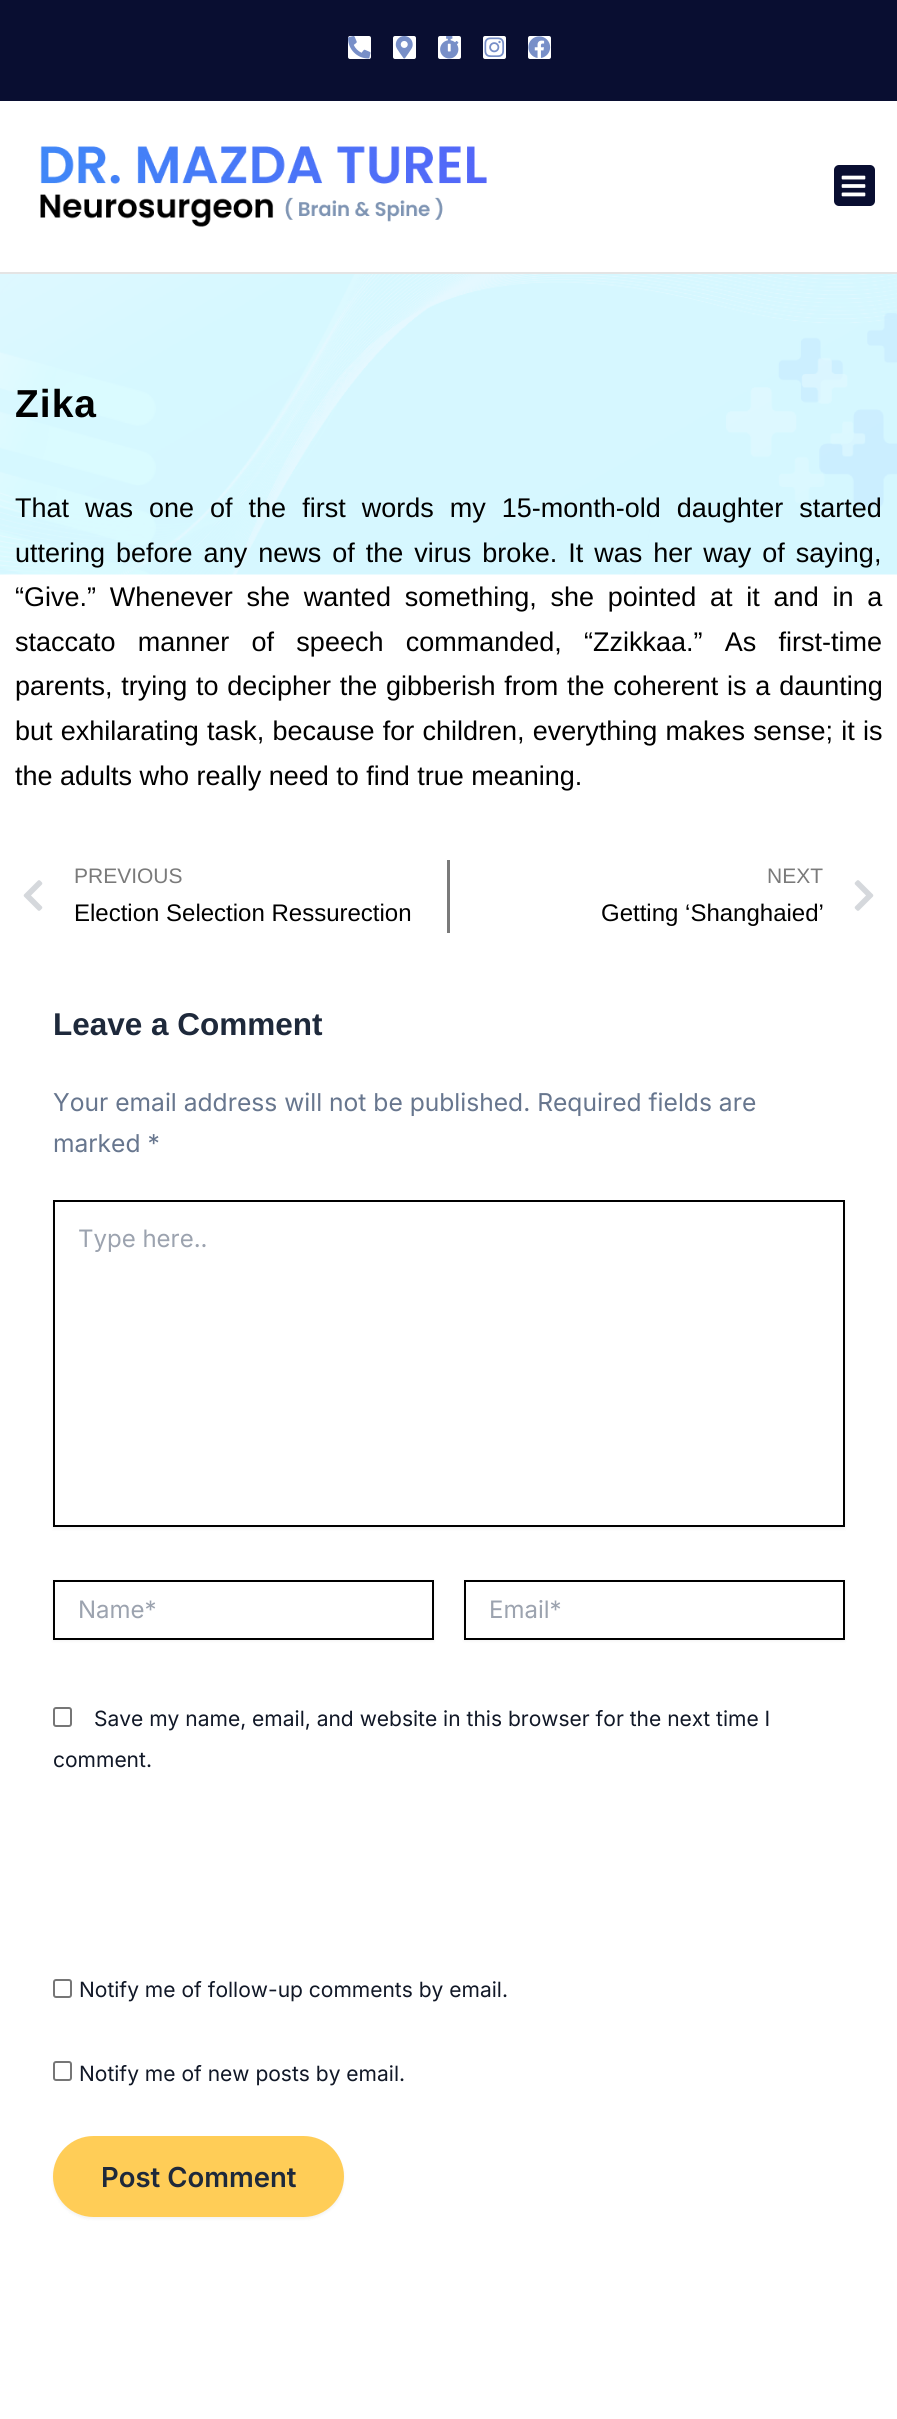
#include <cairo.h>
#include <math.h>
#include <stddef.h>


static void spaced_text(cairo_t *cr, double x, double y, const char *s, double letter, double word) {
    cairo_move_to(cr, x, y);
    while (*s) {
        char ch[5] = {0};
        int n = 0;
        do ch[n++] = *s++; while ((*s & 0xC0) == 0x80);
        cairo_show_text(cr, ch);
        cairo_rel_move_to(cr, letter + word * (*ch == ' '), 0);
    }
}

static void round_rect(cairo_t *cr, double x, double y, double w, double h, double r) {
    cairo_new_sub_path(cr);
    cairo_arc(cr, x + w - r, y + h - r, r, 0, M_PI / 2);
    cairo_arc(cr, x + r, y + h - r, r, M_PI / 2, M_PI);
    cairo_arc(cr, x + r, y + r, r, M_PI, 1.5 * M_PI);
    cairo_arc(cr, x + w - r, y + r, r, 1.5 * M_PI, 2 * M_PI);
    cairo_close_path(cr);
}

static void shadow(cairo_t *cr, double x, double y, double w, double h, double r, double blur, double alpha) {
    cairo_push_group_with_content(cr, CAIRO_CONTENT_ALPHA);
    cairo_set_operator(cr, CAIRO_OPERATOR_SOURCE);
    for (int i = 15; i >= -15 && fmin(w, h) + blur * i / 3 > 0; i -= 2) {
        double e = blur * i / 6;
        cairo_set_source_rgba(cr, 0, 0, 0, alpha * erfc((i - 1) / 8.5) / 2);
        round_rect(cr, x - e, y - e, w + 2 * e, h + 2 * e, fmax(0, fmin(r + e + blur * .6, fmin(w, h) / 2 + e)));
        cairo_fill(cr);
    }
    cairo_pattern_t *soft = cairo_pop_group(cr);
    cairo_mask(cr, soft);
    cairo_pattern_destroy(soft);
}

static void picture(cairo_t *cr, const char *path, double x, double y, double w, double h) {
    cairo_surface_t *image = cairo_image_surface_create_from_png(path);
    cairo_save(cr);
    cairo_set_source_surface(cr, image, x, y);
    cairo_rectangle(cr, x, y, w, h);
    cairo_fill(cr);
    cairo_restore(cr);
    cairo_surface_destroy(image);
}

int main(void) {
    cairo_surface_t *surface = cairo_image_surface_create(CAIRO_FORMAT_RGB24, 897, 2419);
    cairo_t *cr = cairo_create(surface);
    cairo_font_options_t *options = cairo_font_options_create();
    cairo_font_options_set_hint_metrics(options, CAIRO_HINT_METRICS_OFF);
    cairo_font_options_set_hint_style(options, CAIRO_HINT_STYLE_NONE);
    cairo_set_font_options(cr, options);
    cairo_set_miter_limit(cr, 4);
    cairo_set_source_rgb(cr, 1, 1, 1);
    cairo_paint(cr);
    cairo_set_source_rgb(cr, 0.039, 0.055, 0.192);
    cairo_rectangle(cr, 0, 0, 897, 101);
    cairo_fill(cr);
    cairo_set_source_rgb(cr, 1, 1, 1);
    round_rect(cr, 348, 36, 23, 23, 2);
    cairo_fill(cr);
    picture(cr, "img1.png", 348, 36, 23, 23);
    round_rect(cr, 393, 36, 23, 23, 2);
    cairo_fill(cr);
    picture(cr, "img2.png", 395, 36, 18, 23);
    round_rect(cr, 438, 36, 23, 23, 2);
    cairo_fill(cr);
    picture(cr, "img3.png", 440, 36, 19, 23);
    round_rect(cr, 483, 36, 23, 23, 2);
    cairo_fill(cr);
    picture(cr, "img4.png", 484, 37, 21, 20);
    round_rect(cr, 528, 36, 23, 23, 2);
    cairo_fill(cr);
    picture(cr, "img5.png", 528, 36, 23, 22);
    cairo_set_source_rgb(cr, 0.894, 0.894, 0.894);
    cairo_rectangle(cr, 0, 272, 897, 2);
    cairo_fill(cr);
    picture(cr, "img6.png", 40, 146, 447, 81);
    cairo_set_source_rgb(cr, 0.039, 0.055, 0.192);
    round_rect(cr, 834, 165, 41, 41, 5);
    cairo_fill(cr);
    picture(cr, "img7.png", 841, 175, 25, 22);
    picture(cr, "img8.png", 0, 274, 897, 301);
    cairo_select_font_face(cr, "Liberation Sans", CAIRO_FONT_SLANT_NORMAL, CAIRO_FONT_WEIGHT_BOLD);
    cairo_set_font_size(cr, 39);
    cairo_set_source_rgb(cr, 0, 0, 0);
    spaced_text(cr, 15, 417, "Zika", 1, 0);
    cairo_select_font_face(cr, "Liberation Sans", CAIRO_FONT_SLANT_NORMAL, CAIRO_FONT_WEIGHT_NORMAL);
    cairo_set_font_size(cr, 27);
    spaced_text(cr, 15, 517, "That was one of the first words my 15-month-old daughter started", 0, 8.5);
    spaced_text(cr, 15, 562, "uttering before any news of the virus broke. It was her way of saying,", 0, 3.5);
    spaced_text(cr, 15, 606, "“Give.” Whenever she wanted something, she pointed at it and in a", 0, 6.25);
    spaced_text(cr, 15, 651, "staccato manner of speech commanded, “Zzikkaa.” As first-time", 0, 14.75);
    spaced_text(cr, 15, 695, "parents, trying to decipher the gibberish from the coherent is a daunting", 0, 1.25);
    spaced_text(cr, 15, 740, "but exhilarating task, because for children, everything makes sense; it is", 0, 0.75);
    cairo_move_to(cr, 15, 785);
    cairo_show_text(cr, "the adults who really need to find true meaning.");
    picture(cr, "img9.png", 23, 880, 20, 31);
    cairo_set_font_size(cr, 21);
    cairo_set_source_rgb(cr, 0.478, 0.478, 0.478);
    cairo_move_to(cr, 74, 883);
    cairo_show_text(cr, "PREVIOUS");
    cairo_set_font_size(cr, 24);
    cairo_set_source_rgb(cr, 0, 0, 0);
    cairo_move_to(cr, 74, 921);
    cairo_show_text(cr, "Election Selection Ressurection");
    cairo_set_source_rgb(cr, 0.478, 0.478, 0.478);
    cairo_rectangle(cr, 447, 860, 3, 73);
    cairo_fill(cr);
    cairo_set_font_size(cr, 21);
    cairo_move_to(cr, 767, 883);
    cairo_show_text(cr, "NEXT");
    cairo_set_font_size(cr, 24);
    cairo_set_source_rgb(cr, 0, 0, 0);
    cairo_move_to(cr, 601, 921);
    cairo_show_text(cr, "Getting ‘Shanghaied’");
    picture(cr, "img10.png", 854, 880, 20, 31);
    cairo_select_font_face(cr, "Liberation Sans", CAIRO_FONT_SLANT_NORMAL, CAIRO_FONT_WEIGHT_BOLD);
    cairo_set_font_size(cr, 31.5);
    cairo_set_source_rgb(cr, 0.118, 0.161, 0.231);
    cairo_move_to(cr, 53, 1035);
    cairo_show_text(cr, "Leave a Comment");
    cairo_select_font_face(cr, "Inter", CAIRO_FONT_SLANT_NORMAL, CAIRO_FONT_WEIGHT_NORMAL);
    cairo_set_font_size(cr, 24.6);
    cairo_set_source_rgb(cr, 0.404, 0.463, 0.557);
    cairo_move_to(cr, 53, 1111);
    cairo_show_text(cr, "Your email address will not be published. Required fields are");
    cairo_move_to(cr, 53, 1152);
    cairo_show_text(cr, "marked *");
    cairo_set_source_rgb(cr, 0, 0, 0);
    shadow(cr, 53, 1202, 792, 327, 0, 1.5, 0.05);
    cairo_set_source_rgb(cr, 1, 1, 1);
    cairo_rectangle(cr, 54, 1201, 790, 325);
    cairo_fill_preserve(cr);
    cairo_set_source_rgb(cr, 0, 0, 0);
    cairo_stroke(cr);
    cairo_set_font_size(cr, 24);
    cairo_set_source_rgb(cr, 0.612, 0.639, 0.686);
    cairo_move_to(cr, 78, 1247);
    cairo_show_text(cr, "Type here..");
    cairo_set_source_rgb(cr, 0, 0, 0);
    shadow(cr, 53, 1581, 381, 60, 0, 1.5, 0.05);
    cairo_set_source_rgb(cr, 1, 1, 1);
    cairo_rectangle(cr, 54, 1581, 379, 58);
    cairo_fill_preserve(cr);
    cairo_set_source_rgb(cr, 0, 0, 0);
    cairo_stroke(cr);
    cairo_set_source_rgb(cr, 0.612, 0.639, 0.686);
    cairo_move_to(cr, 78, 1618);
    cairo_show_text(cr, "Name*");
    cairo_set_source_rgb(cr, 0, 0, 0);
    shadow(cr, 464, 1581, 381, 60, 0, 1.5, 0.05);
    cairo_set_source_rgb(cr, 1, 1, 1);
    cairo_rectangle(cr, 465, 1581, 379, 58);
    cairo_fill_preserve(cr);
    cairo_set_source_rgb(cr, 0, 0, 0);
    cairo_stroke(cr);
    cairo_set_source_rgb(cr, 0.612, 0.639, 0.686);
    cairo_move_to(cr, 489, 1618);
    cairo_show_text(cr, "Email*");
    round_rect(cr, 54, 1708, 17, 18, 2);
    cairo_set_source_rgb(cr, 0.463, 0.463, 0.463);
    cairo_stroke(cr);
    cairo_set_font_size(cr, 21);
    cairo_set_source_rgb(cr, 0.067, 0.094, 0.153);
    cairo_move_to(cr, 94, 1726);
    cairo_show_text(cr, "Save my name, email, and website in this browser for the next time I");
    cairo_move_to(cr, 53, 1767);
    cairo_show_text(cr, "comment.");
    round_rect(cr, 54, 1980, 17, 17, 2);
    cairo_set_source_rgb(cr, 0.463, 0.463, 0.463);
    cairo_stroke(cr);
    cairo_set_source_rgb(cr, 0.067, 0.094, 0.153);
    cairo_move_to(cr, 79, 1997);
    cairo_show_text(cr, "Notify me of follow-up comments by email.");
    round_rect(cr, 54, 2062, 17, 18, 2);
    cairo_set_source_rgb(cr, 0.463, 0.463, 0.463);
    cairo_stroke(cr);
    cairo_set_source_rgb(cr, 0.067, 0.094, 0.153);
    cairo_move_to(cr, 79, 2081);
    cairo_show_text(cr, "Notify me of new posts by email.");
    cairo_set_source_rgb(cr, 0, 0, 0);
    shadow(cr, 53, 2138, 291, 81, 40.5, 1.5, 0.05);
    cairo_set_source_rgb(cr, 1, 0.804, 0.341);
    round_rect(cr, 53, 2136, 291, 81, 40.5);
    cairo_fill(cr);
    cairo_select_font_face(cr, "Inter SemiBold", CAIRO_FONT_SLANT_NORMAL, CAIRO_FONT_WEIGHT_NORMAL);
    cairo_set_font_size(cr, 27.5);
    cairo_set_source_rgb(cr, 0.118, 0.161, 0.231);
    cairo_move_to(cr, 101, 2187);
    cairo_show_text(cr, "Post Comment");
    cairo_surface_write_to_png(surface, "page.png");
    cairo_font_options_destroy(options);
    cairo_destroy(cr);
    cairo_surface_destroy(surface);
    return 0;
}
